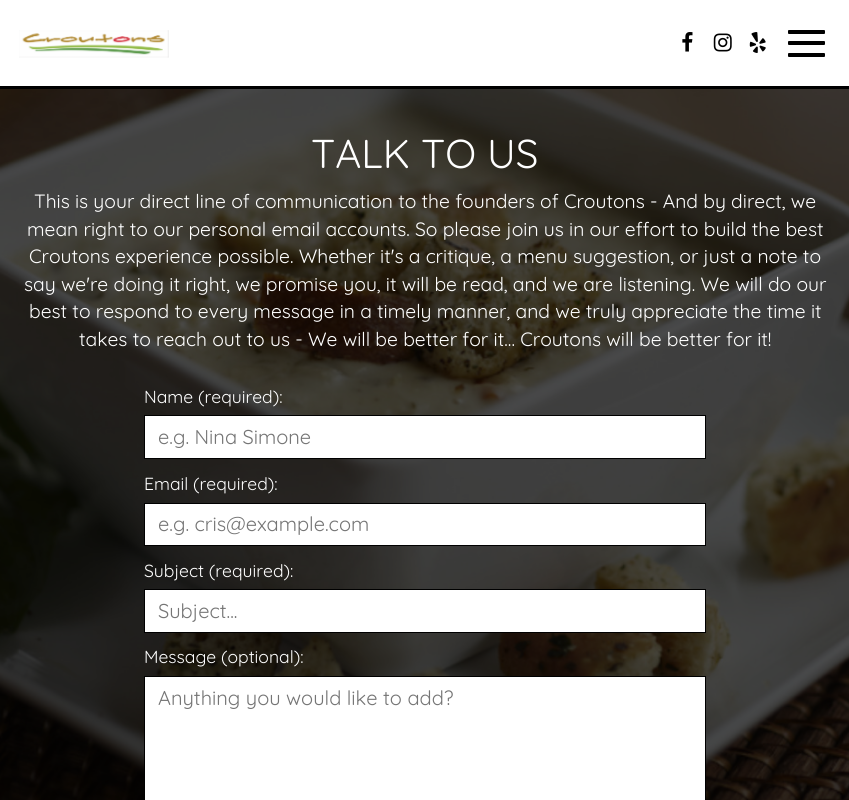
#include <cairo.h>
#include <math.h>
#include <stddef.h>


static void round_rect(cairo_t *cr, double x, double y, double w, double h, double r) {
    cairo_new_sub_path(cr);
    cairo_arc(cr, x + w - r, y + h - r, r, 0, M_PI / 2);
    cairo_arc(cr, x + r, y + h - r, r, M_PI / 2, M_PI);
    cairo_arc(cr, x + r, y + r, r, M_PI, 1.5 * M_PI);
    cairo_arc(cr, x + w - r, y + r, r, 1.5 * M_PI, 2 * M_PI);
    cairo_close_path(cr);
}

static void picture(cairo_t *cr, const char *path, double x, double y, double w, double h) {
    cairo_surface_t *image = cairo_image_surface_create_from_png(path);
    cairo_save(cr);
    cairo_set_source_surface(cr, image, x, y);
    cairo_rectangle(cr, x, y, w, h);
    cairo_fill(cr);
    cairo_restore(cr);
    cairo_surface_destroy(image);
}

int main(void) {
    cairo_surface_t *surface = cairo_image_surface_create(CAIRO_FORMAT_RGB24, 849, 800);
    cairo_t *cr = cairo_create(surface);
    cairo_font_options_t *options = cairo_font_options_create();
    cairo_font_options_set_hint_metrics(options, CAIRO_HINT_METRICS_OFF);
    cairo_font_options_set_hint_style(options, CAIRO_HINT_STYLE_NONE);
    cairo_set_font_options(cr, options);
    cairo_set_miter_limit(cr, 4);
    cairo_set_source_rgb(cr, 0, 0, 0);
    cairo_paint(cr);
    picture(cr, "img1.png", 0, 89, 849, 711);
    cairo_set_source_rgb(cr, 1, 1, 1);
    cairo_rectangle(cr, 0, 0, 849, 86);
    cairo_fill(cr);
    picture(cr, "img2.png", 19, 30, 150, 28);
    picture(cr, "img3.png", 682, 32, 11, 20);
    picture(cr, "img4.png", 713, 33, 19, 19);
    picture(cr, "img5.png", 749, 32, 17, 21);
    cairo_set_source_rgb(cr, 0, 0, 0);
    round_rect(cr, 788, 30, 37, 4, 1);
    cairo_fill(cr);
    round_rect(cr, 788, 41, 37, 4, 1);
    cairo_fill(cr);
    round_rect(cr, 788, 53, 37, 4, 1);
    cairo_fill(cr);
    cairo_select_font_face(cr, "Quicksand Light", CAIRO_FONT_SLANT_NORMAL, CAIRO_FONT_WEIGHT_NORMAL);
    cairo_set_font_size(cr, 40.25);
    cairo_set_source_rgb(cr, 1, 1, 1);
    cairo_move_to(cr, 311, 168);
    cairo_show_text(cr, "TALK TO US");
    cairo_set_font_size(cr, 19.25);
    cairo_move_to(cr, 34, 208);
    cairo_show_text(cr, "This is your direct line of communication to the founders of Croutons - And by direct, we");
    cairo_move_to(cr, 27, 236);
    cairo_show_text(cr, "mean right to our personal email accounts. So please join us in our effort to build the best");
    cairo_move_to(cr, 29, 263);
    cairo_show_text(cr, "Croutons experience possible. Whether it's a critique, a menu suggestion, or just a note to");
    cairo_move_to(cr, 24, 291);
    cairo_show_text(cr, "say we're doing it right, we promise you, it will be read, and we are listening. We will do our");
    cairo_move_to(cr, 29, 318);
    cairo_show_text(cr, "best to respond to every message in a timely manner, and we truly appreciate the time it");
    cairo_move_to(cr, 79, 346);
    cairo_show_text(cr, "takes to reach out to us - We will be better for it… Croutons will be better for it!");
    cairo_set_font_size(cr, 17.5);
    cairo_move_to(cr, 144, 403);
    cairo_show_text(cr, "Name (required):");
    cairo_rectangle(cr, 144.5, 415.5, 561, 43);
    cairo_fill_preserve(cr);
    cairo_set_source_rgb(cr, 0, 0, 0);
    cairo_set_line_width(cr, 1);
    cairo_stroke(cr);
    cairo_set_font_size(cr, 20);
    cairo_set_source_rgb(cr, 0.459, 0.459, 0.459);
    cairo_move_to(cr, 158, 444);
    cairo_show_text(cr, "e.g. Nina Simone");
    cairo_set_font_size(cr, 17.5);
    cairo_set_source_rgb(cr, 1, 1, 1);
    cairo_move_to(cr, 144, 490);
    cairo_show_text(cr, "Email (required):");
    cairo_rectangle(cr, 144.5, 503.5, 561, 42);
    cairo_fill_preserve(cr);
    cairo_set_source_rgb(cr, 0, 0, 0);
    cairo_stroke(cr);
    cairo_set_font_size(cr, 20);
    cairo_set_source_rgb(cr, 0.459, 0.459, 0.459);
    cairo_move_to(cr, 158, 531);
    cairo_show_text(cr, "e.g. cris@example.com");
    cairo_set_font_size(cr, 17.5);
    cairo_set_source_rgb(cr, 1, 1, 1);
    cairo_move_to(cr, 144, 577);
    cairo_show_text(cr, "Subject (required):");
    cairo_rectangle(cr, 144.5, 589.5, 561, 43);
    cairo_fill_preserve(cr);
    cairo_set_source_rgb(cr, 0, 0, 0);
    cairo_stroke(cr);
    cairo_set_font_size(cr, 20);
    cairo_set_source_rgb(cr, 0.459, 0.459, 0.459);
    cairo_move_to(cr, 158, 618);
    cairo_show_text(cr, "Subject...");
    cairo_set_font_size(cr, 17.5);
    cairo_set_source_rgb(cr, 1, 1, 1);
    cairo_move_to(cr, 144, 663);
    cairo_show_text(cr, "Message (optional):");
    cairo_rectangle(cr, 144.5, 676.5, 561, 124);
    cairo_fill_preserve(cr);
    cairo_set_source_rgb(cr, 0, 0, 0);
    cairo_stroke(cr);
    cairo_set_font_size(cr, 20);
    cairo_set_source_rgb(cr, 0.459, 0.459, 0.459);
    cairo_move_to(cr, 158, 705);
    cairo_show_text(cr, "Anything you would like to add?");
    cairo_surface_write_to_png(surface, "page.png");
    cairo_font_options_destroy(options);
    cairo_destroy(cr);
    cairo_surface_destroy(surface);
    return 0;
}
